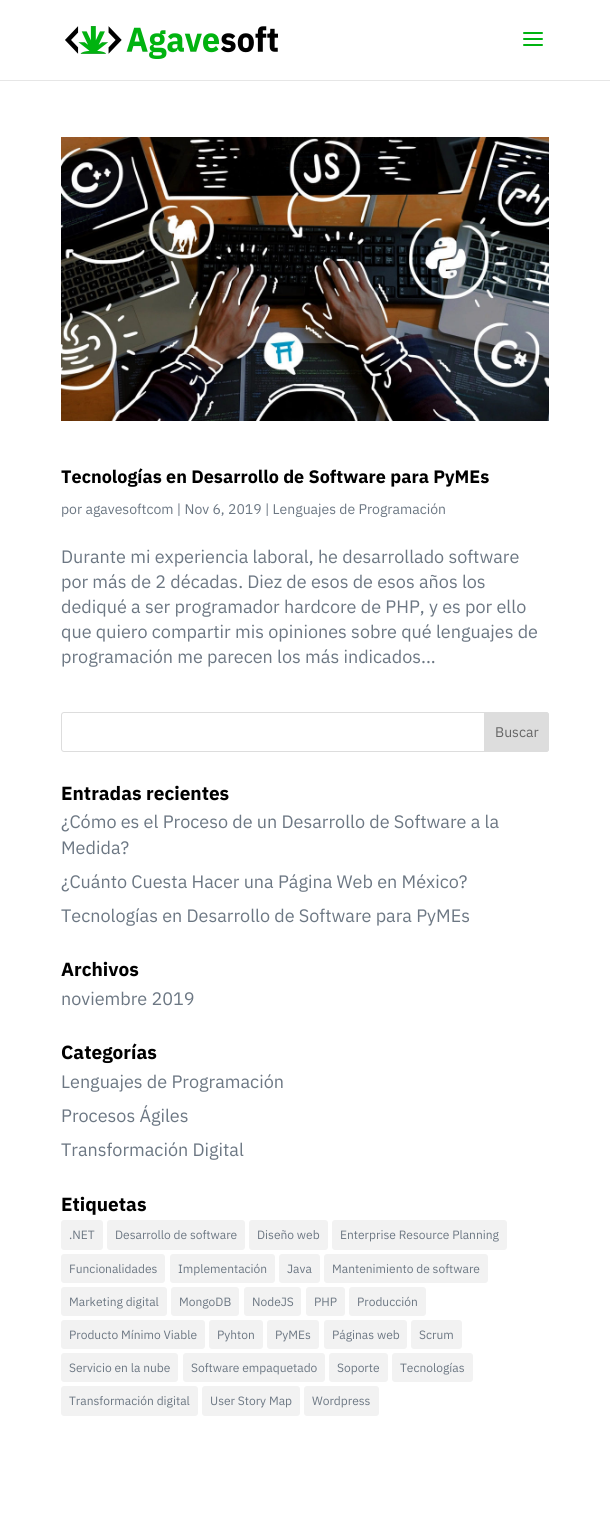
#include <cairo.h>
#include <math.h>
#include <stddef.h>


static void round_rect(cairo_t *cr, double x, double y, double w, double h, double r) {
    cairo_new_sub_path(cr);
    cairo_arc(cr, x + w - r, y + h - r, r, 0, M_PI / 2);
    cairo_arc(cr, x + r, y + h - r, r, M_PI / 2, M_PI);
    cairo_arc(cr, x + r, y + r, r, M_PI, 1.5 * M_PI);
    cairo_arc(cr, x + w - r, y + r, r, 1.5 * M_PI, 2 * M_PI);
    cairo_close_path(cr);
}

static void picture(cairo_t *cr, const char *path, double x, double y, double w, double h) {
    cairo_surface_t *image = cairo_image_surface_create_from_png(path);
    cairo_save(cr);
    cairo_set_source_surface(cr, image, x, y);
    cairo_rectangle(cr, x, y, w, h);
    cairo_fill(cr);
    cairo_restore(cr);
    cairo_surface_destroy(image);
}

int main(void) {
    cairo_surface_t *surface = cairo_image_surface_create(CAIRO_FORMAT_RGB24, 610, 1525);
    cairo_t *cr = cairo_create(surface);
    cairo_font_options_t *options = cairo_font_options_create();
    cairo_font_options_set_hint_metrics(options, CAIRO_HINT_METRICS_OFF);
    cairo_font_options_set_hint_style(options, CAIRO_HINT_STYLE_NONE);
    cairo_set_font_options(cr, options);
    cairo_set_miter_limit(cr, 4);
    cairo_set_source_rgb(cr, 1, 1, 1);
    cairo_paint(cr);
    cairo_set_source_rgb(cr, 0.902, 0.902, 0.902);
    cairo_rectangle(cr, 0, 80, 610, 1);
    cairo_fill(cr);
    picture(cr, "img1.png", 65, 26, 213, 33);
    picture(cr, "img2.png", 523, 32, 20, 14);
    picture(cr, "img3.png", 61, 137, 488, 284);
    cairo_select_font_face(cr, "IBM Plex Sans", CAIRO_FONT_SLANT_NORMAL, CAIRO_FONT_WEIGHT_BOLD);
    cairo_set_font_size(cr, 18);
    cairo_set_source_rgb(cr, 0, 0, 0);
    cairo_move_to(cr, 61, 483);
    cairo_show_text(cr, "Tecnologías en Desarrollo de Software para PyMEs");
    cairo_select_font_face(cr, "IBM Plex Sans", CAIRO_FONT_SLANT_NORMAL, CAIRO_FONT_WEIGHT_NORMAL);
    cairo_set_font_size(cr, 14);
    cairo_set_source_rgb(cr, 0.424, 0.467, 0.514);
    cairo_move_to(cr, 61, 514);
    cairo_show_text(cr, "por agavesoftcom | Nov 6, 2019 | Lenguajes de Programación");
    cairo_set_font_size(cr, 18);
    cairo_move_to(cr, 61, 563);
    cairo_show_text(cr, "Durante mi experiencia laboral, he desarrollado software");
    cairo_move_to(cr, 61, 588);
    cairo_show_text(cr, "por más de 2 décadas. Diez de esos de esos años los");
    cairo_move_to(cr, 61, 613);
    cairo_show_text(cr, "dediqué a ser programador hardcore de PHP, y es por ello");
    cairo_move_to(cr, 61, 638);
    cairo_show_text(cr, "que quiero compartir mis opiniones sobre qué lenguajes de");
    cairo_move_to(cr, 61, 663);
    cairo_show_text(cr, "programación me parecen los más indicados...");
    round_rect(cr, 61.5, 712.5, 487, 39, 2.5);
    cairo_set_source_rgb(cr, 0.867, 0.867, 0.867);
    cairo_set_line_width(cr, 1);
    cairo_stroke(cr);
    cairo_new_path(cr);
    cairo_move_to(cr, 484.5, 712.5);
    cairo_line_to(cr, 546, 712.5);
    cairo_curve_to(cr, 547.5, 712.5, 548.5, 713.5, 548.5, 715);
    cairo_line_to(cr, 548.5, 749);
    cairo_curve_to(cr, 548.5, 750.5, 547.5, 751.5, 546, 751.5);
    cairo_line_to(cr, 484.5, 751.5);
    cairo_close_path(cr);
    cairo_fill_preserve(cr);
    cairo_stroke(cr);
    cairo_set_font_size(cr, 14);
    cairo_set_source_rgb(cr, 0.4, 0.4, 0.4);
    cairo_move_to(cr, 495, 737);
    cairo_show_text(cr, "Buscar");
    cairo_select_font_face(cr, "IBM Plex Sans", CAIRO_FONT_SLANT_NORMAL, CAIRO_FONT_WEIGHT_BOLD);
    cairo_set_font_size(cr, 19);
    cairo_set_source_rgb(cr, 0, 0, 0);
    cairo_move_to(cr, 61, 800);
    cairo_show_text(cr, "Entradas recientes");
    cairo_select_font_face(cr, "IBM Plex Sans", CAIRO_FONT_SLANT_NORMAL, CAIRO_FONT_WEIGHT_NORMAL);
    cairo_set_font_size(cr, 18);
    cairo_set_source_rgb(cr, 0.424, 0.467, 0.514);
    cairo_move_to(cr, 61, 828);
    cairo_show_text(cr, "¿Cómo es el Proceso de un Desarrollo de Software a la");
    cairo_move_to(cr, 61, 854);
    cairo_show_text(cr, "Medida?");
    cairo_move_to(cr, 61, 888);
    cairo_show_text(cr, "¿Cuánto Cuesta Hacer una Página Web en México?");
    cairo_move_to(cr, 61, 922);
    cairo_show_text(cr, "Tecnologías en Desarrollo de Software para PyMEs");
    cairo_select_font_face(cr, "IBM Plex Sans", CAIRO_FONT_SLANT_NORMAL, CAIRO_FONT_WEIGHT_BOLD);
    cairo_set_font_size(cr, 19);
    cairo_set_source_rgb(cr, 0, 0, 0);
    cairo_move_to(cr, 61, 976);
    cairo_show_text(cr, "Archivos");
    cairo_select_font_face(cr, "IBM Plex Sans", CAIRO_FONT_SLANT_NORMAL, CAIRO_FONT_WEIGHT_NORMAL);
    cairo_set_font_size(cr, 18);
    cairo_set_source_rgb(cr, 0.424, 0.467, 0.514);
    cairo_move_to(cr, 61, 1005);
    cairo_show_text(cr, "noviembre 2019");
    cairo_select_font_face(cr, "IBM Plex Sans", CAIRO_FONT_SLANT_NORMAL, CAIRO_FONT_WEIGHT_BOLD);
    cairo_set_font_size(cr, 19);
    cairo_set_source_rgb(cr, 0, 0, 0);
    cairo_move_to(cr, 61, 1059);
    cairo_show_text(cr, "Categorías");
    cairo_select_font_face(cr, "IBM Plex Sans", CAIRO_FONT_SLANT_NORMAL, CAIRO_FONT_WEIGHT_NORMAL);
    cairo_set_font_size(cr, 18);
    cairo_set_source_rgb(cr, 0.424, 0.467, 0.514);
    cairo_move_to(cr, 61, 1088);
    cairo_show_text(cr, "Lenguajes de Programación");
    cairo_move_to(cr, 61, 1122);
    cairo_show_text(cr, "Procesos Ágiles");
    cairo_move_to(cr, 61, 1156);
    cairo_show_text(cr, "Transformación Digital");
    cairo_select_font_face(cr, "IBM Plex Sans", CAIRO_FONT_SLANT_NORMAL, CAIRO_FONT_WEIGHT_BOLD);
    cairo_set_font_size(cr, 19);
    cairo_set_source_rgb(cr, 0, 0, 0);
    cairo_move_to(cr, 61, 1211);
    cairo_show_text(cr, "Etiquetas");
    cairo_set_source_rgb(cr, 0.949, 0.949, 0.949);
    round_rect(cr, 61, 1220, 42, 30, 3);
    cairo_fill(cr);
    cairo_select_font_face(cr, "IBM Plex Sans", CAIRO_FONT_SLANT_NORMAL, CAIRO_FONT_WEIGHT_NORMAL);
    cairo_set_font_size(cr, 12);
    cairo_set_source_rgb(cr, 0.424, 0.467, 0.514);
    cairo_move_to(cr, 69, 1239);
    cairo_show_text(cr, ".NET");
    cairo_set_source_rgb(cr, 0.949, 0.949, 0.949);
    round_rect(cr, 107, 1220, 138, 30, 3);
    cairo_fill(cr);
    cairo_set_source_rgb(cr, 0.424, 0.467, 0.514);
    cairo_move_to(cr, 115, 1239);
    cairo_show_text(cr, "Desarrollo de software");
    cairo_set_source_rgb(cr, 0.949, 0.949, 0.949);
    round_rect(cr, 249, 1220, 79, 30, 3);
    cairo_fill(cr);
    cairo_set_source_rgb(cr, 0.424, 0.467, 0.514);
    cairo_move_to(cr, 257, 1239);
    cairo_show_text(cr, "Diseño web");
    cairo_set_source_rgb(cr, 0.949, 0.949, 0.949);
    round_rect(cr, 332, 1220, 175, 30, 3);
    cairo_fill(cr);
    cairo_set_source_rgb(cr, 0.424, 0.467, 0.514);
    cairo_move_to(cr, 340, 1239);
    cairo_show_text(cr, "Enterprise Resource Planning");
    cairo_set_source_rgb(cr, 0.949, 0.949, 0.949);
    round_rect(cr, 61, 1254, 104, 29, 3);
    cairo_fill(cr);
    cairo_set_source_rgb(cr, 0.424, 0.467, 0.514);
    cairo_move_to(cr, 69, 1273);
    cairo_show_text(cr, "Funcionalidades");
    cairo_set_source_rgb(cr, 0.949, 0.949, 0.949);
    round_rect(cr, 170, 1254, 105, 29, 3);
    cairo_fill(cr);
    cairo_set_source_rgb(cr, 0.424, 0.467, 0.514);
    cairo_move_to(cr, 178, 1273);
    cairo_show_text(cr, "Implementación");
    cairo_set_source_rgb(cr, 0.949, 0.949, 0.949);
    round_rect(cr, 279, 1254, 41, 29, 3);
    cairo_fill(cr);
    cairo_set_source_rgb(cr, 0.424, 0.467, 0.514);
    cairo_move_to(cr, 287, 1273);
    cairo_show_text(cr, "Java");
    cairo_set_source_rgb(cr, 0.949, 0.949, 0.949);
    round_rect(cr, 324, 1254, 164, 29, 3);
    cairo_fill(cr);
    cairo_set_source_rgb(cr, 0.424, 0.467, 0.514);
    cairo_move_to(cr, 332, 1273);
    cairo_show_text(cr, "Mantenimiento de software");
    cairo_set_source_rgb(cr, 0.949, 0.949, 0.949);
    round_rect(cr, 61, 1287, 106, 29, 3);
    cairo_fill(cr);
    cairo_set_source_rgb(cr, 0.424, 0.467, 0.514);
    cairo_move_to(cr, 69, 1306);
    cairo_show_text(cr, "Marketing digital");
    cairo_set_source_rgb(cr, 0.949, 0.949, 0.949);
    round_rect(cr, 171, 1287, 68, 29, 3);
    cairo_fill(cr);
    cairo_set_source_rgb(cr, 0.424, 0.467, 0.514);
    cairo_move_to(cr, 179, 1306);
    cairo_show_text(cr, "MongoDB");
    cairo_set_source_rgb(cr, 0.949, 0.949, 0.949);
    round_rect(cr, 244, 1287, 57, 29, 3);
    cairo_fill(cr);
    cairo_set_source_rgb(cr, 0.424, 0.467, 0.514);
    cairo_move_to(cr, 252, 1306);
    cairo_show_text(cr, "NodeJS");
    cairo_set_source_rgb(cr, 0.949, 0.949, 0.949);
    round_rect(cr, 306, 1287, 39, 29, 3);
    cairo_fill(cr);
    cairo_set_source_rgb(cr, 0.424, 0.467, 0.514);
    cairo_move_to(cr, 314, 1306);
    cairo_show_text(cr, "PHP");
    cairo_set_source_rgb(cr, 0.949, 0.949, 0.949);
    round_rect(cr, 349, 1287, 77, 29, 3);
    cairo_fill(cr);
    cairo_set_source_rgb(cr, 0.424, 0.467, 0.514);
    cairo_move_to(cr, 357, 1306);
    cairo_show_text(cr, "Producción");
    cairo_set_source_rgb(cr, 0.949, 0.949, 0.949);
    round_rect(cr, 61, 1320, 144, 29, 3);
    cairo_fill(cr);
    cairo_set_source_rgb(cr, 0.424, 0.467, 0.514);
    cairo_move_to(cr, 69, 1339);
    cairo_show_text(cr, "Producto Mínimo Viable");
    cairo_set_source_rgb(cr, 0.949, 0.949, 0.949);
    round_rect(cr, 209, 1320, 54, 29, 3);
    cairo_fill(cr);
    cairo_set_source_rgb(cr, 0.424, 0.467, 0.514);
    cairo_move_to(cr, 217, 1339);
    cairo_show_text(cr, "Pyhton");
    cairo_set_source_rgb(cr, 0.949, 0.949, 0.949);
    round_rect(cr, 267, 1320, 52, 29, 3);
    cairo_fill(cr);
    cairo_set_source_rgb(cr, 0.424, 0.467, 0.514);
    cairo_move_to(cr, 275, 1339);
    cairo_show_text(cr, "PyMEs");
    cairo_set_source_rgb(cr, 0.949, 0.949, 0.949);
    round_rect(cr, 324, 1320, 83, 29, 3);
    cairo_fill(cr);
    cairo_set_source_rgb(cr, 0.424, 0.467, 0.514);
    cairo_move_to(cr, 332, 1339);
    cairo_show_text(cr, "Páginas web");
    cairo_set_source_rgb(cr, 0.949, 0.949, 0.949);
    round_rect(cr, 411, 1320, 51, 29, 3);
    cairo_fill(cr);
    cairo_set_source_rgb(cr, 0.424, 0.467, 0.514);
    cairo_move_to(cr, 419, 1339);
    cairo_show_text(cr, "Scrum");
    cairo_set_source_rgb(cr, 0.949, 0.949, 0.949);
    round_rect(cr, 61, 1353, 117, 29, 3);
    cairo_fill(cr);
    cairo_set_source_rgb(cr, 0.424, 0.467, 0.514);
    cairo_move_to(cr, 69, 1372);
    cairo_show_text(cr, "Servicio en la nube");
    cairo_set_source_rgb(cr, 0.949, 0.949, 0.949);
    round_rect(cr, 183, 1353, 142, 29, 3);
    cairo_fill(cr);
    cairo_set_source_rgb(cr, 0.424, 0.467, 0.514);
    cairo_move_to(cr, 191, 1372);
    cairo_show_text(cr, "Software empaquetado");
    cairo_set_source_rgb(cr, 0.949, 0.949, 0.949);
    round_rect(cr, 329, 1353, 59, 29, 3);
    cairo_fill(cr);
    cairo_set_source_rgb(cr, 0.424, 0.467, 0.514);
    cairo_move_to(cr, 337, 1372);
    cairo_show_text(cr, "Soporte");
    cairo_set_source_rgb(cr, 0.949, 0.949, 0.949);
    round_rect(cr, 392, 1353, 81, 29, 3);
    cairo_fill(cr);
    cairo_set_source_rgb(cr, 0.424, 0.467, 0.514);
    cairo_move_to(cr, 400, 1372);
    cairo_show_text(cr, "Tecnologías");
    cairo_set_source_rgb(cr, 0.949, 0.949, 0.949);
    round_rect(cr, 61, 1386, 137, 30, 3);
    cairo_fill(cr);
    cairo_set_source_rgb(cr, 0.424, 0.467, 0.514);
    cairo_move_to(cr, 69, 1405);
    cairo_show_text(cr, "Transformación digital");
    cairo_set_source_rgb(cr, 0.949, 0.949, 0.949);
    round_rect(cr, 202, 1386, 98, 30, 3);
    cairo_fill(cr);
    cairo_set_source_rgb(cr, 0.424, 0.467, 0.514);
    cairo_move_to(cr, 210, 1405);
    cairo_show_text(cr, "User Story Map");
    cairo_set_source_rgb(cr, 0.949, 0.949, 0.949);
    round_rect(cr, 304, 1386, 75, 30, 3);
    cairo_fill(cr);
    cairo_set_source_rgb(cr, 0.424, 0.467, 0.514);
    cairo_move_to(cr, 312, 1405);
    cairo_show_text(cr, "Wordpress");
    cairo_surface_write_to_png(surface, "page.png");
    cairo_font_options_destroy(options);
    cairo_destroy(cr);
    cairo_surface_destroy(surface);
    return 0;
}
